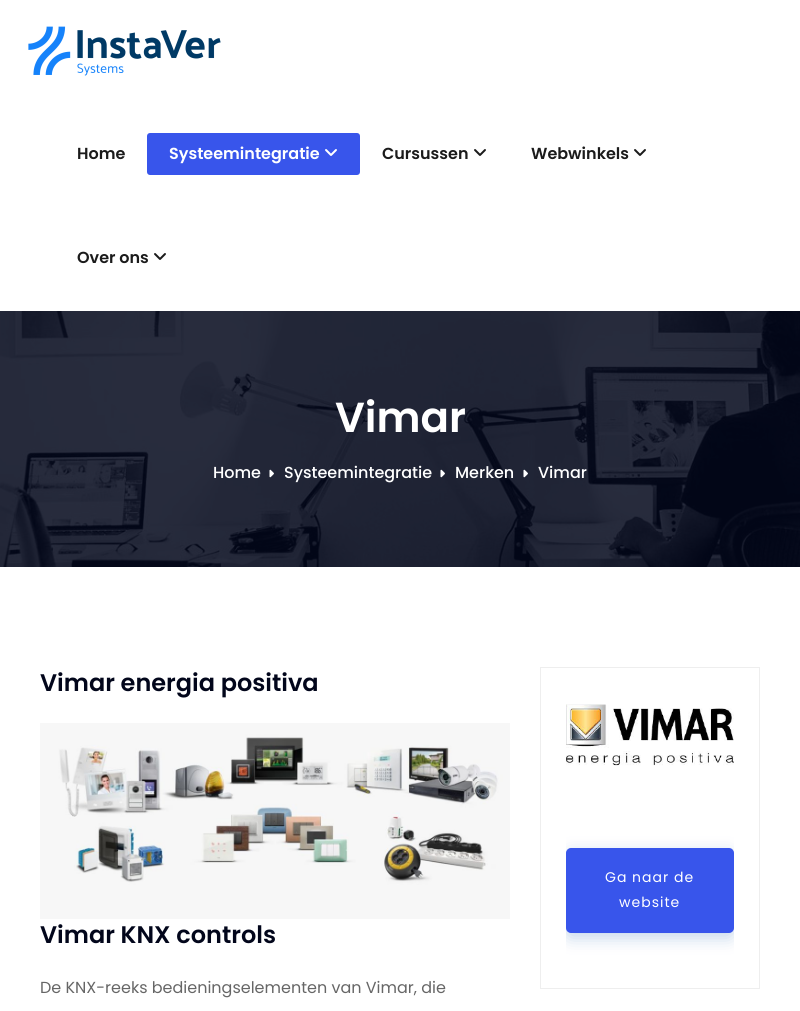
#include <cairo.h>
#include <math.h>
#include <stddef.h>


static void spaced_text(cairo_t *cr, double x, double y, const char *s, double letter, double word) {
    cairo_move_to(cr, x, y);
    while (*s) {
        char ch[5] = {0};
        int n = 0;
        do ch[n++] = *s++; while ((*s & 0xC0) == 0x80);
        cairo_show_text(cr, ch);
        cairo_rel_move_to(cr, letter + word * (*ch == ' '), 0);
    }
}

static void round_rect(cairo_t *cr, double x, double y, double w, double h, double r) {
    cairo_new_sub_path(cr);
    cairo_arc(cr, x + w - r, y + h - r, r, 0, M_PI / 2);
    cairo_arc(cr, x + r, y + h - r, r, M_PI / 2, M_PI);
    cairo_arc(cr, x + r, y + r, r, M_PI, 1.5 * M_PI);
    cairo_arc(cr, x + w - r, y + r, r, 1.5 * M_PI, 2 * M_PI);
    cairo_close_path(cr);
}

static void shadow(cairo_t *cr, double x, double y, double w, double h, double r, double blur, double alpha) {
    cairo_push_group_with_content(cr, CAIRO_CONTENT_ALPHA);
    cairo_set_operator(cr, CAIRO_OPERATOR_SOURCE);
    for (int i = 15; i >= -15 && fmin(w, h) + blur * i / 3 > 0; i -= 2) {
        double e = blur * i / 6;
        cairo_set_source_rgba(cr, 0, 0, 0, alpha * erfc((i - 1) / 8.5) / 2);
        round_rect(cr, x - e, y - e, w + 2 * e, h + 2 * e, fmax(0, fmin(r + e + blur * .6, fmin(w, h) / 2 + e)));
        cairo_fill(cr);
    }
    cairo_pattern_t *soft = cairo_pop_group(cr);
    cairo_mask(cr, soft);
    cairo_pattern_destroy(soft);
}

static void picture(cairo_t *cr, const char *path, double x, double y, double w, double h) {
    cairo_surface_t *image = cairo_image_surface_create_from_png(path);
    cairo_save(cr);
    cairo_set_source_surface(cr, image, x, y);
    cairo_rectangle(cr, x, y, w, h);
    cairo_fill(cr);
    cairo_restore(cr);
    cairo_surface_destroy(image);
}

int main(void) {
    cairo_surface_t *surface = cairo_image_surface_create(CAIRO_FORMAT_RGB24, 800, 1011);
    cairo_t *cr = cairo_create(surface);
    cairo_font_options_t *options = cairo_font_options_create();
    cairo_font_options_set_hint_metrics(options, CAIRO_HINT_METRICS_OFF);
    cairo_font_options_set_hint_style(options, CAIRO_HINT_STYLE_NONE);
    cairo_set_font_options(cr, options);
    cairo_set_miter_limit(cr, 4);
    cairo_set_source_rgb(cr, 1, 1, 1);
    cairo_paint(cr);
    picture(cr, "img1.png", 28, 26, 193, 50);
    cairo_select_font_face(cr, "Poppins SemiBold", CAIRO_FONT_SLANT_NORMAL, CAIRO_FONT_WEIGHT_NORMAL);
    cairo_set_font_size(cr, 16);
    cairo_set_source_rgb(cr, 0.106, 0.106, 0.106);
    cairo_move_to(cr, 77, 159);
    cairo_show_text(cr, "Home");
    cairo_set_source_rgb(cr, 0.22, 0.333, 0.918);
    round_rect(cr, 147, 133, 213, 42, 3);
    cairo_fill(cr);
    cairo_set_source_rgb(cr, 1, 1, 1);
    cairo_move_to(cr, 169, 159);
    cairo_show_text(cr, "Systeemintegratie");
    picture(cr, "img2.png", 325, 149, 12, 7);
    cairo_set_source_rgb(cr, 0.106, 0.106, 0.106);
    cairo_move_to(cr, 382, 159);
    cairo_show_text(cr, "Cursussen");
    picture(cr, "img3.png", 474, 149, 12, 7);
    cairo_move_to(cr, 531, 159);
    cairo_show_text(cr, "Webwinkels");
    picture(cr, "img3.png", 634, 149, 12, 7);
    cairo_move_to(cr, 77, 263);
    cairo_show_text(cr, "Over ons");
    picture(cr, "img3.png", 154, 253, 12, 7);
    picture(cr, "img4.png", 0, 311, 800, 256);
    cairo_set_font_size(cr, 42);
    cairo_set_source_rgb(cr, 1, 1, 1);
    cairo_move_to(cr, 335, 432);
    cairo_show_text(cr, "Vimar");
    cairo_select_font_face(cr, "Poppins Medium", CAIRO_FONT_SLANT_NORMAL, CAIRO_FONT_WEIGHT_NORMAL);
    cairo_set_font_size(cr, 16);
    cairo_move_to(cr, 213, 478);
    cairo_show_text(cr, "Home");
    picture(cr, "img5.png", 269, 469, 5, 9);
    cairo_move_to(cr, 284, 478);
    cairo_show_text(cr, "Systeemintegratie");
    picture(cr, "img6.png", 440, 469, 5, 9);
    cairo_move_to(cr, 455, 478);
    cairo_show_text(cr, "Merken");
    picture(cr, "img7.png", 523, 469, 5, 9);
    cairo_move_to(cr, 538, 478);
    cairo_show_text(cr, "Vimar");
    cairo_select_font_face(cr, "Poppins SemiBold", CAIRO_FONT_SLANT_NORMAL, CAIRO_FONT_WEIGHT_NORMAL);
    cairo_set_font_size(cr, 24);
    cairo_set_source_rgb(cr, 0.008, 0.027, 0.106);
    cairo_move_to(cr, 40, 691);
    cairo_show_text(cr, "Vimar energia positiva");
    picture(cr, "img8.png", 40, 723, 470, 196);
    cairo_move_to(cr, 40, 943);
    cairo_show_text(cr, "Vimar KNX controls");
    cairo_select_font_face(cr, "Poppins", CAIRO_FONT_SLANT_NORMAL, CAIRO_FONT_WEIGHT_NORMAL);
    cairo_set_font_size(cr, 16);
    cairo_set_source_rgb(cr, 0.4, 0.4, 0.4);
    cairo_move_to(cr, 40, 993);
    cairo_show_text(cr, "De KNX-reeks bedieningselementen van Vimar, die");
    cairo_rectangle(cr, 540.5, 667.5, 219, 321);
    cairo_set_source_rgb(cr, 0.933, 0.933, 0.933);
    cairo_set_line_width(cr, 1);
    cairo_stroke(cr);
    picture(cr, "img9.png", 566, 704, 168, 62);
    cairo_save(cr);
    cairo_rectangle(cr, 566, 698, 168, 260);
    cairo_clip(cr);
    cairo_set_source_rgb(cr, 0.251, 0.486, 0.749);
    shadow(cr, 566, 853, 168, 85, 5, 8, 0.3);
    cairo_restore(cr);
    cairo_set_source_rgb(cr, 0.22, 0.333, 0.918);
    round_rect(cr, 567, 849, 166, 83, 4);
    cairo_fill_preserve(cr);
    cairo_set_line_width(cr, 2);
    cairo_stroke(cr);
    cairo_set_font_size(cr, 14);
    cairo_set_source_rgb(cr, 1, 1, 1);
    spaced_text(cr, 605, 882, "Ga naar de", 1, 0);
    spaced_text(cr, 619, 907, "website", 1, 0);
    cairo_surface_write_to_png(surface, "page.png");
    cairo_font_options_destroy(options);
    cairo_destroy(cr);
    cairo_surface_destroy(surface);
    return 0;
}
